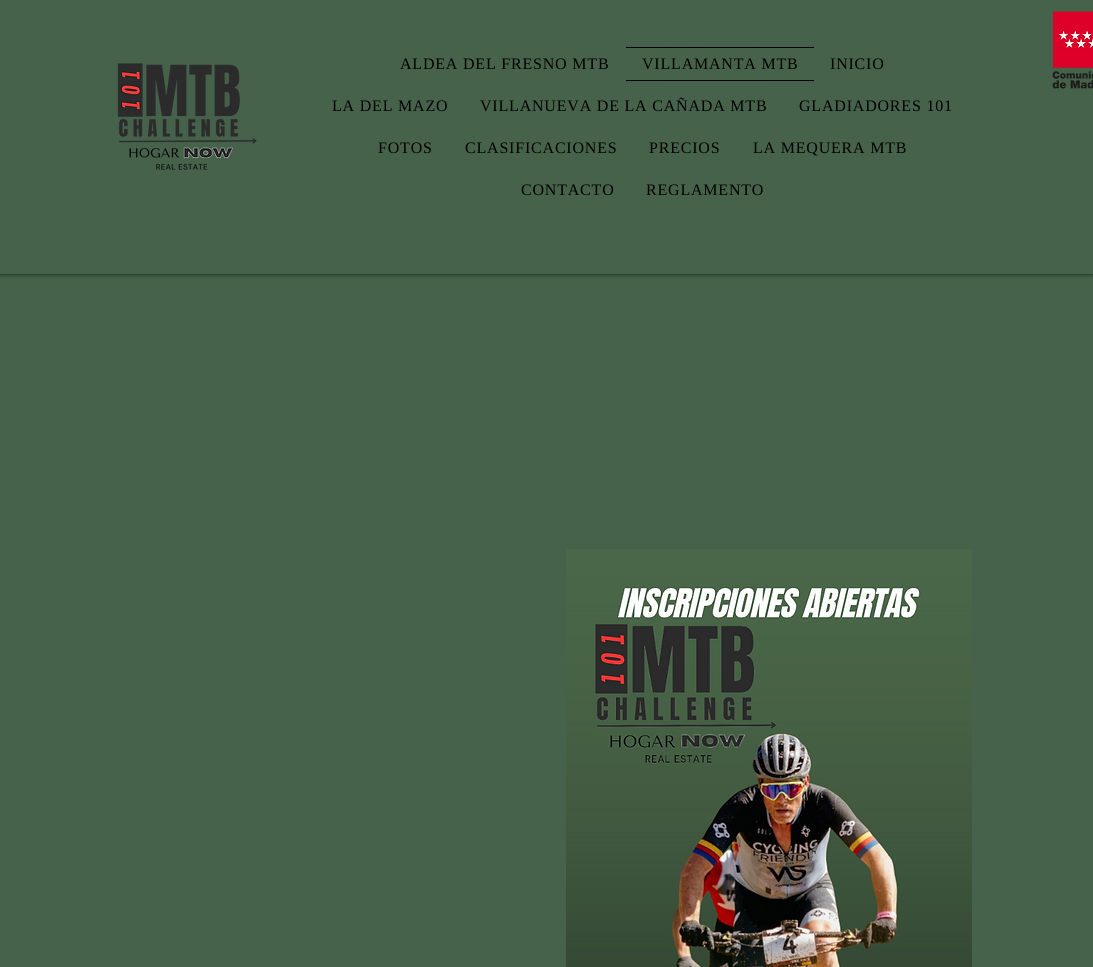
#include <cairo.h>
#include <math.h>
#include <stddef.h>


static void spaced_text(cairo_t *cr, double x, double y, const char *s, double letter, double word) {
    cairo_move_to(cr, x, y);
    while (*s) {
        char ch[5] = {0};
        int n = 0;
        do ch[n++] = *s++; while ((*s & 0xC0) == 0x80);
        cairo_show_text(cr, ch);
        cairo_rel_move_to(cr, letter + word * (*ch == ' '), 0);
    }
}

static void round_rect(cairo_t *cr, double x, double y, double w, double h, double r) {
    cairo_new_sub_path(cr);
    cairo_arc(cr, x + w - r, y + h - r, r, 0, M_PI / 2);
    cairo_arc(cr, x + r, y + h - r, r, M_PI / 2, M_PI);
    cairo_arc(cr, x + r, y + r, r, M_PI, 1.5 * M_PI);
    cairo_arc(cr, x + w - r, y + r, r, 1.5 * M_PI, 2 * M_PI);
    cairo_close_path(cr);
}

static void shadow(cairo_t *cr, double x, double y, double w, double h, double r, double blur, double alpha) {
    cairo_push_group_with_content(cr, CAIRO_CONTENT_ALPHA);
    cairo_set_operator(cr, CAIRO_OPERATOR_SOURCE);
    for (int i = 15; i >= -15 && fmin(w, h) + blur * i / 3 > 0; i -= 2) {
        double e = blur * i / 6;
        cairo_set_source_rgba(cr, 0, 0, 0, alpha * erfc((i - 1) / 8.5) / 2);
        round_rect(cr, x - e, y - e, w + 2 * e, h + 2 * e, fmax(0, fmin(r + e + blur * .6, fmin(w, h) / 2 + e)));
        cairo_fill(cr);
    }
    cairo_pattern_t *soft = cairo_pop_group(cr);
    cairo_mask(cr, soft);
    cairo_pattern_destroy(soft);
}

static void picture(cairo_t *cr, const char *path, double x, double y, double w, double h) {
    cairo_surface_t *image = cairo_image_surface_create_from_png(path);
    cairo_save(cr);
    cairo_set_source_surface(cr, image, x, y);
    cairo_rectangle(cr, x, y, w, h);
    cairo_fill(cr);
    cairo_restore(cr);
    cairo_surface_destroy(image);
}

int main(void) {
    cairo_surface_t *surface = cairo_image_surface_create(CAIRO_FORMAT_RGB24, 1093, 967);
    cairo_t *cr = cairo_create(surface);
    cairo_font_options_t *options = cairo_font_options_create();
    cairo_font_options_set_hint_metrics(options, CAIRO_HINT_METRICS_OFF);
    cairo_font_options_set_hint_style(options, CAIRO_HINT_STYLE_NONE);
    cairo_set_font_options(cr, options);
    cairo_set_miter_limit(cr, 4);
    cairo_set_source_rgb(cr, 0.275, 0.384, 0.294);
    cairo_paint(cr);
    cairo_set_source_rgb(cr, 0, 0, 0);
    shadow(cr, 0, 0, 1093, 274, 0, 2.5, 0.7);
    cairo_set_source_rgb(cr, 0.275, 0.384, 0.294);
    cairo_rectangle(cr, 0, 0, 1093, 274);
    cairo_fill(cr);
    picture(cr, "img1.png", 1052, 11, 41, 78);
    picture(cr, "img2.png", 117, 63, 140, 107);
    cairo_select_font_face(cr, "Liberation Serif", CAIRO_FONT_SLANT_NORMAL, CAIRO_FONT_WEIGHT_NORMAL);
    cairo_set_font_size(cr, 16);
    cairo_set_source_rgb(cr, 0, 0, 0);
    spaced_text(cr, 400, 69, "ALDEA DEL FRESNO MTB", 0.8, 0);
    cairo_rectangle(cr, 626, 47, 188, 1);
    cairo_fill(cr);
    cairo_rectangle(cr, 626, 80, 188, 1);
    cairo_fill(cr);
    spaced_text(cr, 642, 69, "VILLAMANTA MTB", 0.8, 0);
    spaced_text(cr, 830, 69, "INICIO", 0.8, 0);
    spaced_text(cr, 332, 111, "LA DEL MAZO", 0.8, 0);
    spaced_text(cr, 480, 111, "VILLANUEVA DE LA CAÑADA MTB", 0.8, 0);
    spaced_text(cr, 799, 111, "GLADIADORES 101", 0.8, 0);
    spaced_text(cr, 378, 153, "FOTOS", 0.8, 0);
    spaced_text(cr, 465, 153, "CLASIFICACIONES", 0.8, 0);
    spaced_text(cr, 649, 153, "PRECIOS", 0.8, 0);
    spaced_text(cr, 753, 153, "LA MEQUERA MTB", 0.8, 0);
    spaced_text(cr, 521, 195, "CONTACTO", 0.8, 0);
    spaced_text(cr, 646, 195, "REGLAMENTO", 0.8, 0);
    picture(cr, "img3.png", 566, 549, 406, 418);
    cairo_surface_write_to_png(surface, "page.png");
    cairo_font_options_destroy(options);
    cairo_destroy(cr);
    cairo_surface_destroy(surface);
    return 0;
}
